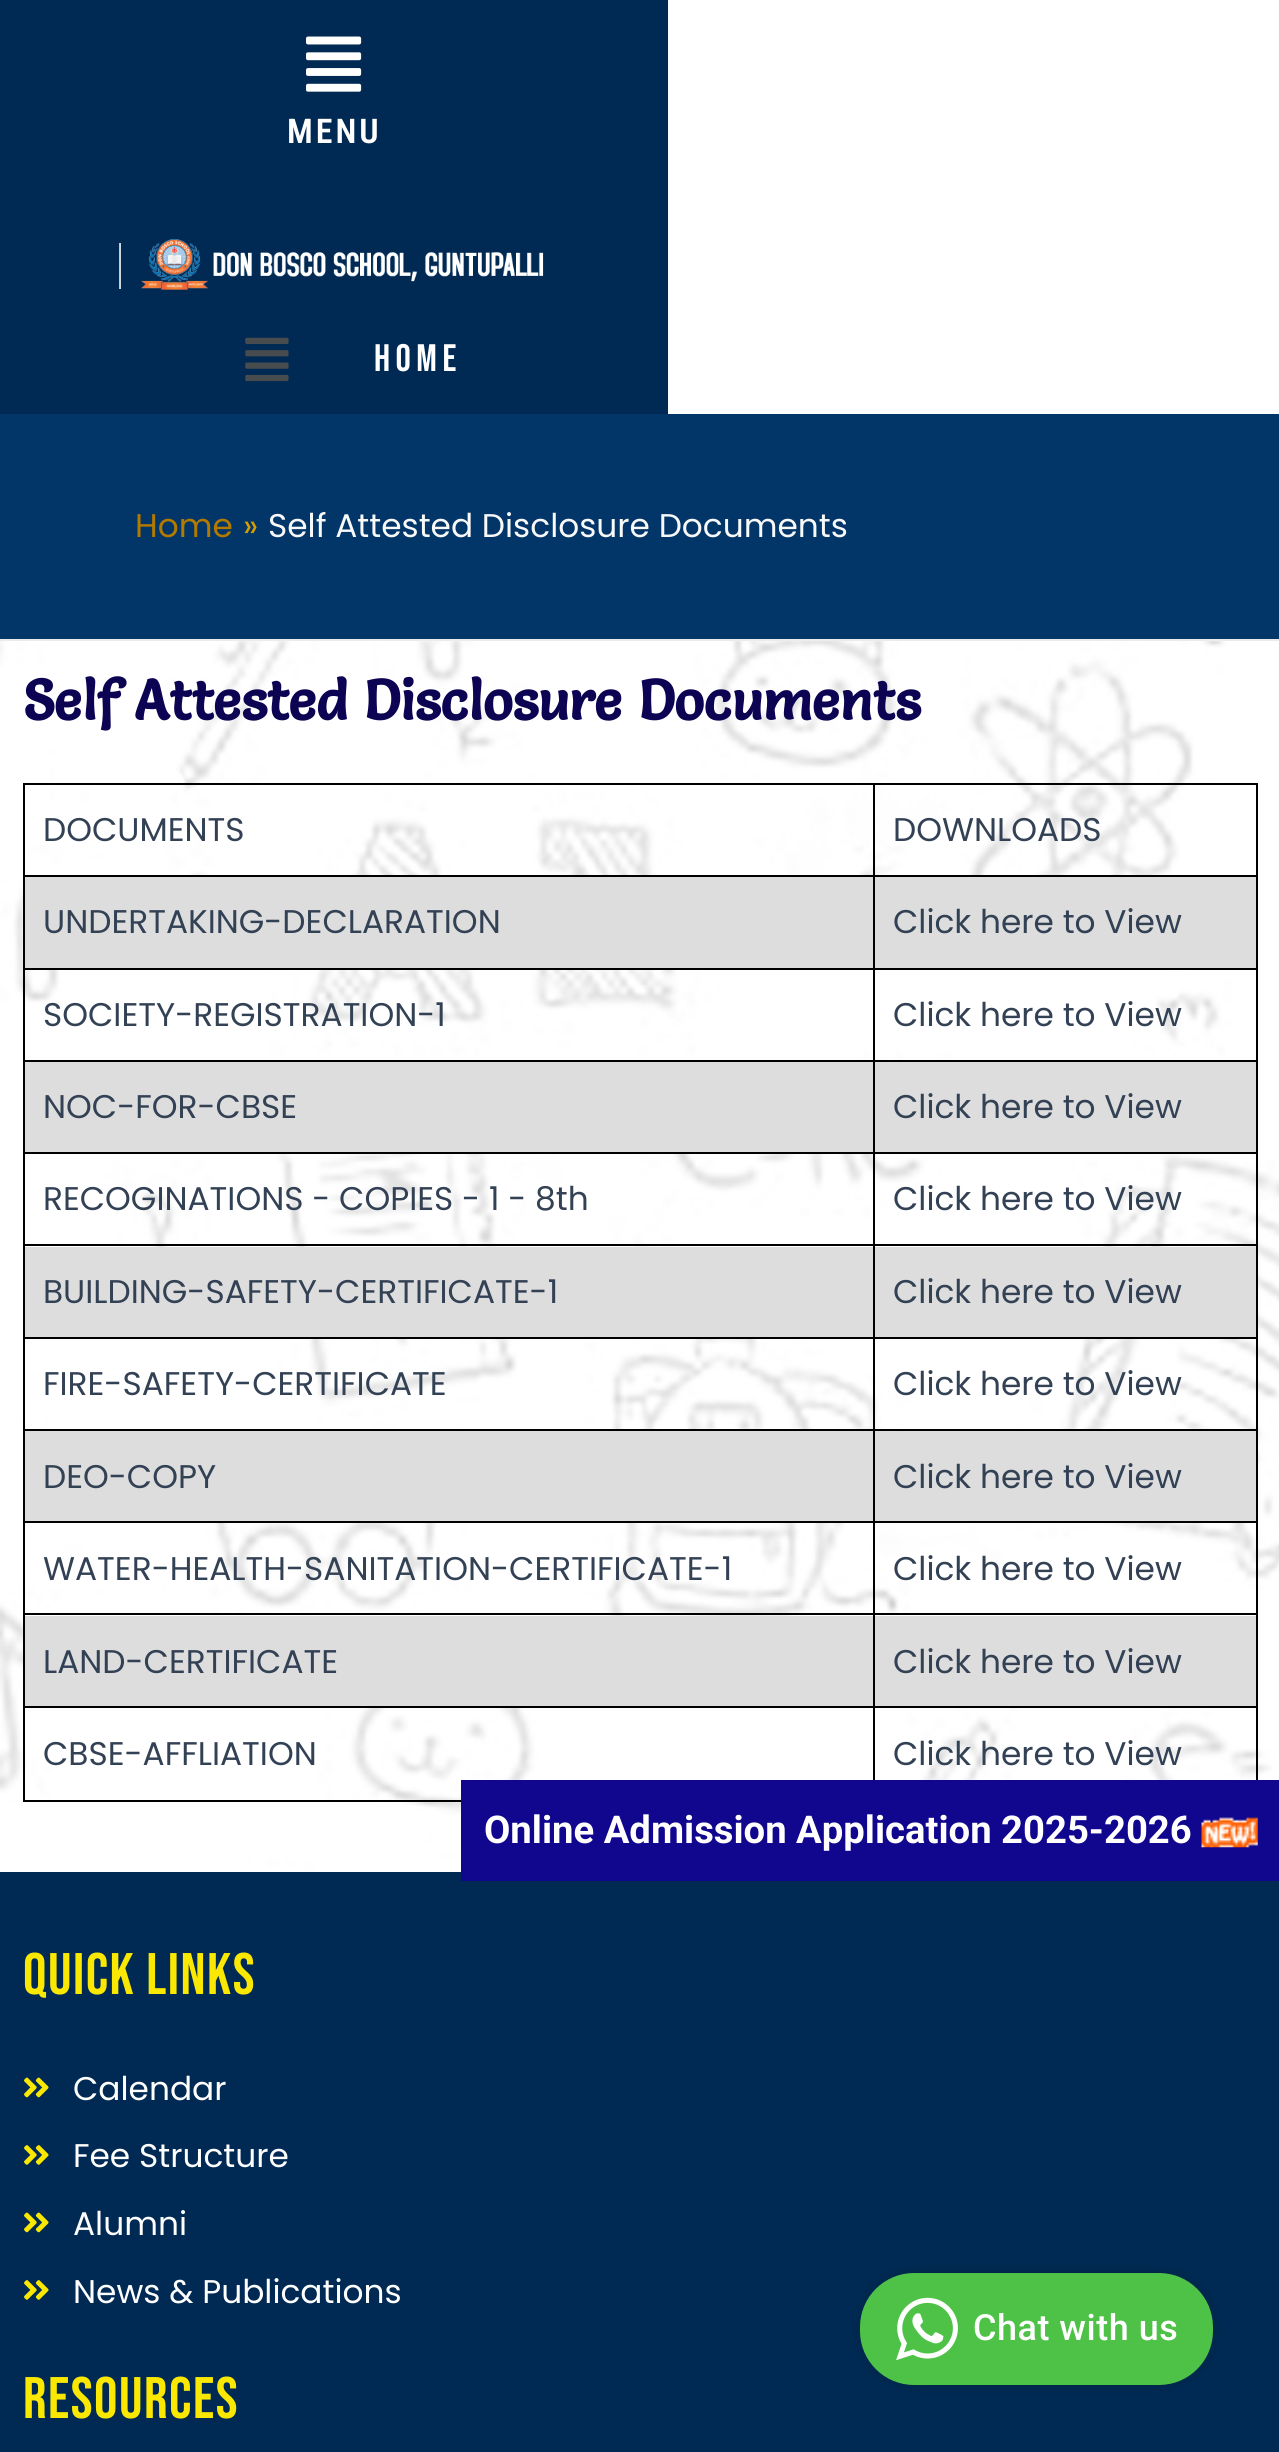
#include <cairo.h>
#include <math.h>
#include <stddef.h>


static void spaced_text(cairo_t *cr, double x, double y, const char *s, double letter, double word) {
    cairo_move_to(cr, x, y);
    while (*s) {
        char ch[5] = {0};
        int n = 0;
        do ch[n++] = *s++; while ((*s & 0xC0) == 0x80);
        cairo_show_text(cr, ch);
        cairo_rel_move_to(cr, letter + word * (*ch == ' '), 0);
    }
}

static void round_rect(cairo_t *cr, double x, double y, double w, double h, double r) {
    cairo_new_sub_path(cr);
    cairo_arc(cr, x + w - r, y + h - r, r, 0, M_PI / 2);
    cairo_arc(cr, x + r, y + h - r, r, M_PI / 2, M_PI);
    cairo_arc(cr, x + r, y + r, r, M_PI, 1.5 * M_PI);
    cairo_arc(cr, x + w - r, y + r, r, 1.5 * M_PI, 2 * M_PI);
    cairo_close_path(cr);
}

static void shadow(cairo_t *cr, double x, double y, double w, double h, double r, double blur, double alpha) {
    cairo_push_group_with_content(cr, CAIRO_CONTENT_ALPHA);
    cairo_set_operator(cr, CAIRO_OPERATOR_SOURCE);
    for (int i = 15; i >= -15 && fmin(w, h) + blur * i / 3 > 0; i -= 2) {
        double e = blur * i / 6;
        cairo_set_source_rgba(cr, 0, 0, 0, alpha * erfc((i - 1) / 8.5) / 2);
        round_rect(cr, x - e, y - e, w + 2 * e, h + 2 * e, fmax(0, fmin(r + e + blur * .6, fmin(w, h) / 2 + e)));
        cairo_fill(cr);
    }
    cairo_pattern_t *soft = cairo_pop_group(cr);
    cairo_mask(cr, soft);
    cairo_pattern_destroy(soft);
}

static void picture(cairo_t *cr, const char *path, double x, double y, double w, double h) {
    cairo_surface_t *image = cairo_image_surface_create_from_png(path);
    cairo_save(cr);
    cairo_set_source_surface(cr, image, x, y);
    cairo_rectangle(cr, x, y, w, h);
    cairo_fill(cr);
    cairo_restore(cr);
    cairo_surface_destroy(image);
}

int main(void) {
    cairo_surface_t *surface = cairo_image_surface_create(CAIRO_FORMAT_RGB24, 1279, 2452);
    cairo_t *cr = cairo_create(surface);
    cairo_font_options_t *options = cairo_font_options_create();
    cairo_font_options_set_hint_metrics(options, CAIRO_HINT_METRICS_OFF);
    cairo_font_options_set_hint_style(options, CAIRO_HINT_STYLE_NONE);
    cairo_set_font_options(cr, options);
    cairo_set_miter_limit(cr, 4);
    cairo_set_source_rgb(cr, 1, 1, 1);
    cairo_paint(cr);
    cairo_set_source_rgb(cr, 0, 0.165, 0.329);
    cairo_rectangle(cr, 0, 0, 668, 414);
    cairo_fill(cr);
    picture(cr, "img1.png", 306, 36, 56, 56);
    cairo_select_font_face(cr, "Roboto Condensed SemiBold", CAIRO_FONT_SLANT_NORMAL, CAIRO_FONT_WEIGHT_NORMAL);
    cairo_set_font_size(cr, 34);
    cairo_set_source_rgb(cr, 1, 1, 1);
    spaced_text(cr, 287, 143, "MENU", 3, 0);
    picture(cr, "img2.png", 119, 239, 425, 51);
    picture(cr, "img3.png", 245, 337, 44, 45);
    cairo_select_font_face(cr, "Bebas Neue", CAIRO_FONT_SLANT_NORMAL, CAIRO_FONT_WEIGHT_NORMAL);
    cairo_set_font_size(cr, 38.25);
    spaced_text(cr, 374, 371, "Home", 5.5, 0);
    cairo_set_source_rgb(cr, 0.008, 0.212, 0.412);
    cairo_rectangle(cr, 0, 414, 1279, 225);
    cairo_fill(cr);
    cairo_set_source_rgb(cr, 0.918, 0.918, 0.918);
    cairo_rectangle(cr, 0, 639, 1279, 2);
    cairo_fill(cr);
    cairo_select_font_face(cr, "Poppins", CAIRO_FONT_SLANT_NORMAL, CAIRO_FONT_WEIGHT_NORMAL);
    cairo_set_font_size(cr, 32.8);
    cairo_set_source_rgb(cr, 0.702, 0.478, 0);
    cairo_move_to(cr, 135, 537);
    cairo_show_text(cr, "Home");
    cairo_set_source_rgb(cr, 0.847, 0.62, 0);
    cairo_move_to(cr, 243, 537);
    cairo_show_text(cr, "»");
    cairo_set_source_rgb(cr, 0.976, 0.976, 0.976);
    cairo_move_to(cr, 268, 537);
    cairo_show_text(cr, "Self Attested Disclosure Documents");
    picture(cr, "img4.png", 0, 641, 1279, 1231);
    cairo_select_font_face(cr, "Salsa", CAIRO_FONT_SLANT_NORMAL, CAIRO_FONT_WEIGHT_BOLD);
    cairo_set_font_size(cr, 56.25);
    cairo_set_source_rgb(cr, 0.047, 0.012, 0.322);
    cairo_move_to(cr, 23, 720);
    cairo_show_text(cr, "Self Attested Disclosure Documents");
    cairo_set_source_rgb(cr, 0, 0, 0);
    cairo_rectangle(cr, 873, 783, 385, 2);
    cairo_fill(cr);
    cairo_set_source_rgb(cr, 0.867, 0.867, 0.867);
    cairo_rectangle(cr, 25, 877, 1231, 91);
    cairo_fill(cr);
    cairo_set_source_rgb(cr, 0, 0, 0);
    cairo_rectangle(cr, 873, 875, 385, 2);
    cairo_fill(cr);
    cairo_rectangle(cr, 873, 968, 385, 2);
    cairo_fill(cr);
    cairo_rectangle(cr, 873, 1060, 385, 2);
    cairo_fill(cr);
    cairo_set_source_rgb(cr, 0.867, 0.867, 0.867);
    cairo_rectangle(cr, 25, 1062, 1231, 90);
    cairo_fill(cr);
    cairo_set_source_rgb(cr, 0, 0, 0);
    cairo_rectangle(cr, 873, 1152, 385, 2);
    cairo_fill(cr);
    cairo_rectangle(cr, 873, 1244, 385, 2);
    cairo_fill(cr);
    cairo_set_source_rgb(cr, 0.867, 0.867, 0.867);
    cairo_rectangle(cr, 25, 1247, 1231, 90);
    cairo_fill(cr);
    cairo_set_source_rgb(cr, 0, 0, 0);
    cairo_rectangle(cr, 873, 1337, 385, 2);
    cairo_fill(cr);
    cairo_rectangle(cr, 873, 1429, 385, 2);
    cairo_fill(cr);
    cairo_set_source_rgb(cr, 0.867, 0.867, 0.867);
    cairo_rectangle(cr, 25, 1431, 1231, 90);
    cairo_fill(cr);
    cairo_set_source_rgb(cr, 0, 0, 0);
    cairo_rectangle(cr, 873, 1521, 385, 2);
    cairo_fill(cr);
    cairo_rectangle(cr, 873, 1613, 385, 2);
    cairo_fill(cr);
    cairo_set_source_rgb(cr, 0.867, 0.867, 0.867);
    cairo_rectangle(cr, 25, 1616, 1231, 90);
    cairo_fill(cr);
    cairo_set_source_rgb(cr, 0, 0, 0);
    cairo_rectangle(cr, 873, 1706, 385, 2);
    cairo_fill(cr);
    cairo_rectangle(cr, 873, 1706, 2, 74);
    cairo_fill(cr);
    cairo_rectangle(cr, 23, 1706, 852, 2);
    cairo_fill(cr);
    cairo_rectangle(cr, 873, 1613, 2, 95);
    cairo_fill(cr);
    cairo_rectangle(cr, 23, 1613, 852, 2);
    cairo_fill(cr);
    cairo_rectangle(cr, 873, 1521, 2, 95);
    cairo_fill(cr);
    cairo_rectangle(cr, 23, 1521, 852, 2);
    cairo_fill(cr);
    cairo_rectangle(cr, 873, 1429, 2, 94);
    cairo_fill(cr);
    cairo_rectangle(cr, 23, 1429, 852, 2);
    cairo_fill(cr);
    cairo_rectangle(cr, 873, 1337, 2, 94);
    cairo_fill(cr);
    cairo_rectangle(cr, 23, 1337, 852, 2);
    cairo_fill(cr);
    cairo_rectangle(cr, 873, 1244, 2, 95);
    cairo_fill(cr);
    cairo_rectangle(cr, 23, 1244, 852, 2);
    cairo_fill(cr);
    cairo_rectangle(cr, 873, 1152, 2, 95);
    cairo_fill(cr);
    cairo_rectangle(cr, 23, 1152, 852, 2);
    cairo_fill(cr);
    cairo_rectangle(cr, 873, 1060, 2, 94);
    cairo_fill(cr);
    cairo_rectangle(cr, 23, 1060, 852, 2);
    cairo_fill(cr);
    cairo_rectangle(cr, 873, 968, 2, 94);
    cairo_fill(cr);
    cairo_rectangle(cr, 23, 968, 852, 2);
    cairo_fill(cr);
    cairo_rectangle(cr, 873, 875, 2, 95);
    cairo_fill(cr);
    cairo_rectangle(cr, 23, 875, 852, 2);
    cairo_fill(cr);
    cairo_rectangle(cr, 873, 783, 2, 95);
    cairo_fill(cr);
    cairo_rectangle(cr, 23, 783, 852, 2);
    cairo_fill(cr);
    cairo_rectangle(cr, 23, 1800, 438, 2);
    cairo_fill(cr);
    cairo_rectangle(cr, 23, 1706, 2, 96);
    cairo_fill(cr);
    cairo_rectangle(cr, 23, 1613, 2, 95);
    cairo_fill(cr);
    cairo_rectangle(cr, 23, 1521, 2, 95);
    cairo_fill(cr);
    cairo_rectangle(cr, 23, 1429, 2, 94);
    cairo_fill(cr);
    cairo_rectangle(cr, 23, 1337, 2, 94);
    cairo_fill(cr);
    cairo_rectangle(cr, 23, 1244, 2, 95);
    cairo_fill(cr);
    cairo_rectangle(cr, 23, 1152, 2, 95);
    cairo_fill(cr);
    cairo_rectangle(cr, 23, 1060, 2, 94);
    cairo_fill(cr);
    cairo_rectangle(cr, 23, 968, 2, 94);
    cairo_fill(cr);
    cairo_rectangle(cr, 23, 875, 2, 95);
    cairo_fill(cr);
    cairo_rectangle(cr, 23, 783, 2, 95);
    cairo_fill(cr);
    cairo_select_font_face(cr, "Poppins", CAIRO_FONT_SLANT_NORMAL, CAIRO_FONT_WEIGHT_NORMAL);
    cairo_set_font_size(cr, 32.8);
    cairo_set_source_rgb(cr, 0.2, 0.255, 0.333);
    cairo_move_to(cr, 43, 841);
    cairo_show_text(cr, "DOCUMENTS");
    cairo_set_source_rgb(cr, 0, 0, 0);
    cairo_rectangle(cr, 1256, 1706, 2, 74);
    cairo_fill(cr);
    cairo_rectangle(cr, 1256, 1613, 2, 95);
    cairo_fill(cr);
    cairo_rectangle(cr, 1256, 1521, 2, 95);
    cairo_fill(cr);
    cairo_rectangle(cr, 1256, 1429, 2, 94);
    cairo_fill(cr);
    cairo_rectangle(cr, 1256, 1337, 2, 94);
    cairo_fill(cr);
    cairo_rectangle(cr, 1256, 1244, 2, 95);
    cairo_fill(cr);
    cairo_rectangle(cr, 1256, 1152, 2, 95);
    cairo_fill(cr);
    cairo_rectangle(cr, 1256, 1060, 2, 94);
    cairo_fill(cr);
    cairo_rectangle(cr, 1256, 968, 2, 94);
    cairo_fill(cr);
    cairo_rectangle(cr, 1256, 875, 2, 95);
    cairo_fill(cr);
    cairo_rectangle(cr, 1256, 783, 2, 95);
    cairo_fill(cr);
    cairo_set_source_rgb(cr, 0.2, 0.255, 0.333);
    cairo_move_to(cr, 893, 841);
    cairo_show_text(cr, "DOWNLOADS");
    cairo_move_to(cr, 43, 933);
    cairo_show_text(cr, "UNDERTAKING-DECLARATION");
    cairo_move_to(cr, 893, 933);
    cairo_show_text(cr, "Click here to View");
    cairo_move_to(cr, 43, 1026);
    cairo_show_text(cr, "SOCIETY-REGISTRATION-1");
    cairo_move_to(cr, 893, 1026);
    cairo_show_text(cr, "Click here to View");
    cairo_move_to(cr, 43, 1118);
    cairo_show_text(cr, "NOC-FOR-CBSE");
    cairo_move_to(cr, 893, 1118);
    cairo_show_text(cr, "Click here to View");
    cairo_move_to(cr, 43, 1210);
    cairo_show_text(cr, "RECOGINATIONS - COPIES - 1 - 8th");
    cairo_move_to(cr, 893, 1210);
    cairo_show_text(cr, "Click here to View");
    cairo_move_to(cr, 43, 1303);
    cairo_show_text(cr, "BUILDING-SAFETY-CERTIFICATE-1");
    cairo_move_to(cr, 893, 1303);
    cairo_show_text(cr, "Click here to View");
    cairo_move_to(cr, 43, 1395);
    cairo_show_text(cr, "FIRE-SAFETY-CERTIFICATE");
    cairo_move_to(cr, 893, 1395);
    cairo_show_text(cr, "Click here to View");
    cairo_move_to(cr, 43, 1488);
    cairo_show_text(cr, "DEO-COPY");
    cairo_move_to(cr, 893, 1488);
    cairo_show_text(cr, "Click here to View");
    cairo_move_to(cr, 43, 1580);
    cairo_show_text(cr, "WATER-HEALTH-SANITATION-CERTIFICATE-1");
    cairo_move_to(cr, 893, 1580);
    cairo_show_text(cr, "Click here to View");
    cairo_move_to(cr, 43, 1673);
    cairo_show_text(cr, "LAND-CERTIFICATE");
    cairo_move_to(cr, 893, 1673);
    cairo_show_text(cr, "Click here to View");
    cairo_move_to(cr, 43, 1765);
    cairo_show_text(cr, "CBSE-AFFLIATION");
    cairo_move_to(cr, 893, 1765);
    cairo_show_text(cr, "Click here to View");
    cairo_set_source_rgb(cr, 0, 0.165, 0.329);
    cairo_rectangle(cr, 0, 1872, 1279, 580);
    cairo_fill(cr);
    cairo_select_font_face(cr, "Bebas Neue", CAIRO_FONT_SLANT_NORMAL, CAIRO_FONT_WEIGHT_NORMAL);
    cairo_set_font_size(cr, 58.5);
    cairo_set_source_rgb(cr, 0.98, 0.91, 0.008);
    spaced_text(cr, 23, 1994, "Quick Links", 1.5, 0);
    picture(cr, "img5.png", 24, 2077, 25, 21);
    cairo_select_font_face(cr, "Poppins", CAIRO_FONT_SLANT_NORMAL, CAIRO_FONT_WEIGHT_NORMAL);
    cairo_set_font_size(cr, 32.8);
    cairo_set_source_rgb(cr, 1, 1, 1);
    cairo_move_to(cr, 73, 2100);
    cairo_show_text(cr, "Calendar");
    picture(cr, "img6.png", 24, 2145, 25, 20);
    cairo_move_to(cr, 73, 2167);
    cairo_show_text(cr, "Fee Structure");
    picture(cr, "img5.png", 24, 2212, 25, 21);
    cairo_move_to(cr, 73, 2235);
    cairo_show_text(cr, "Alumni");
    picture(cr, "img6.png", 24, 2280, 25, 20);
    cairo_move_to(cr, 73, 2303);
    cairo_show_text(cr, "News & Publications");
    cairo_select_font_face(cr, "Bebas Neue", CAIRO_FONT_SLANT_NORMAL, CAIRO_FONT_WEIGHT_NORMAL);
    cairo_set_font_size(cr, 58.5);
    cairo_set_source_rgb(cr, 0.98, 0.91, 0.008);
    spaced_text(cr, 23, 2418, "Resources", 1.5, 0);
    cairo_set_source_rgb(cr, 0.067, 0.024, 0.557);
    cairo_rectangle(cr, 461, 1780, 818, 101);
    cairo_fill(cr);
    cairo_select_font_face(cr, "Roboto", CAIRO_FONT_SLANT_NORMAL, CAIRO_FONT_WEIGHT_BOLD);
    cairo_set_font_size(cr, 38.25);
    cairo_set_source_rgb(cr, 1, 1, 1);
    cairo_move_to(cr, 484, 1843);
    cairo_show_text(cr, "Online Admission Application 2025-2026");
    picture(cr, "img7.png", 1201, 1817, 57, 31);
    cairo_set_source_rgb(cr, 0, 0, 0);
    shadow(cr, 860, 2273, 353, 112, 54, 7, 0.2);
    cairo_set_source_rgb(cr, 0.302, 0.761, 0.278);
    round_rect(cr, 860, 2273, 353, 112, 54);
    cairo_fill(cr);
    picture(cr, "img8.png", 896, 2297, 62, 64);
    cairo_select_font_face(cr, "Roboto Medium", CAIRO_FONT_SLANT_NORMAL, CAIRO_FONT_WEIGHT_NORMAL);
    cairo_set_font_size(cr, 36);
    cairo_set_source_rgb(cr, 1, 1, 1);
    spaced_text(cr, 973, 2340, "Chat with us", 0.5, 0);
    cairo_surface_write_to_png(surface, "page.png");
    cairo_font_options_destroy(options);
    cairo_destroy(cr);
    cairo_surface_destroy(surface);
    return 0;
}
